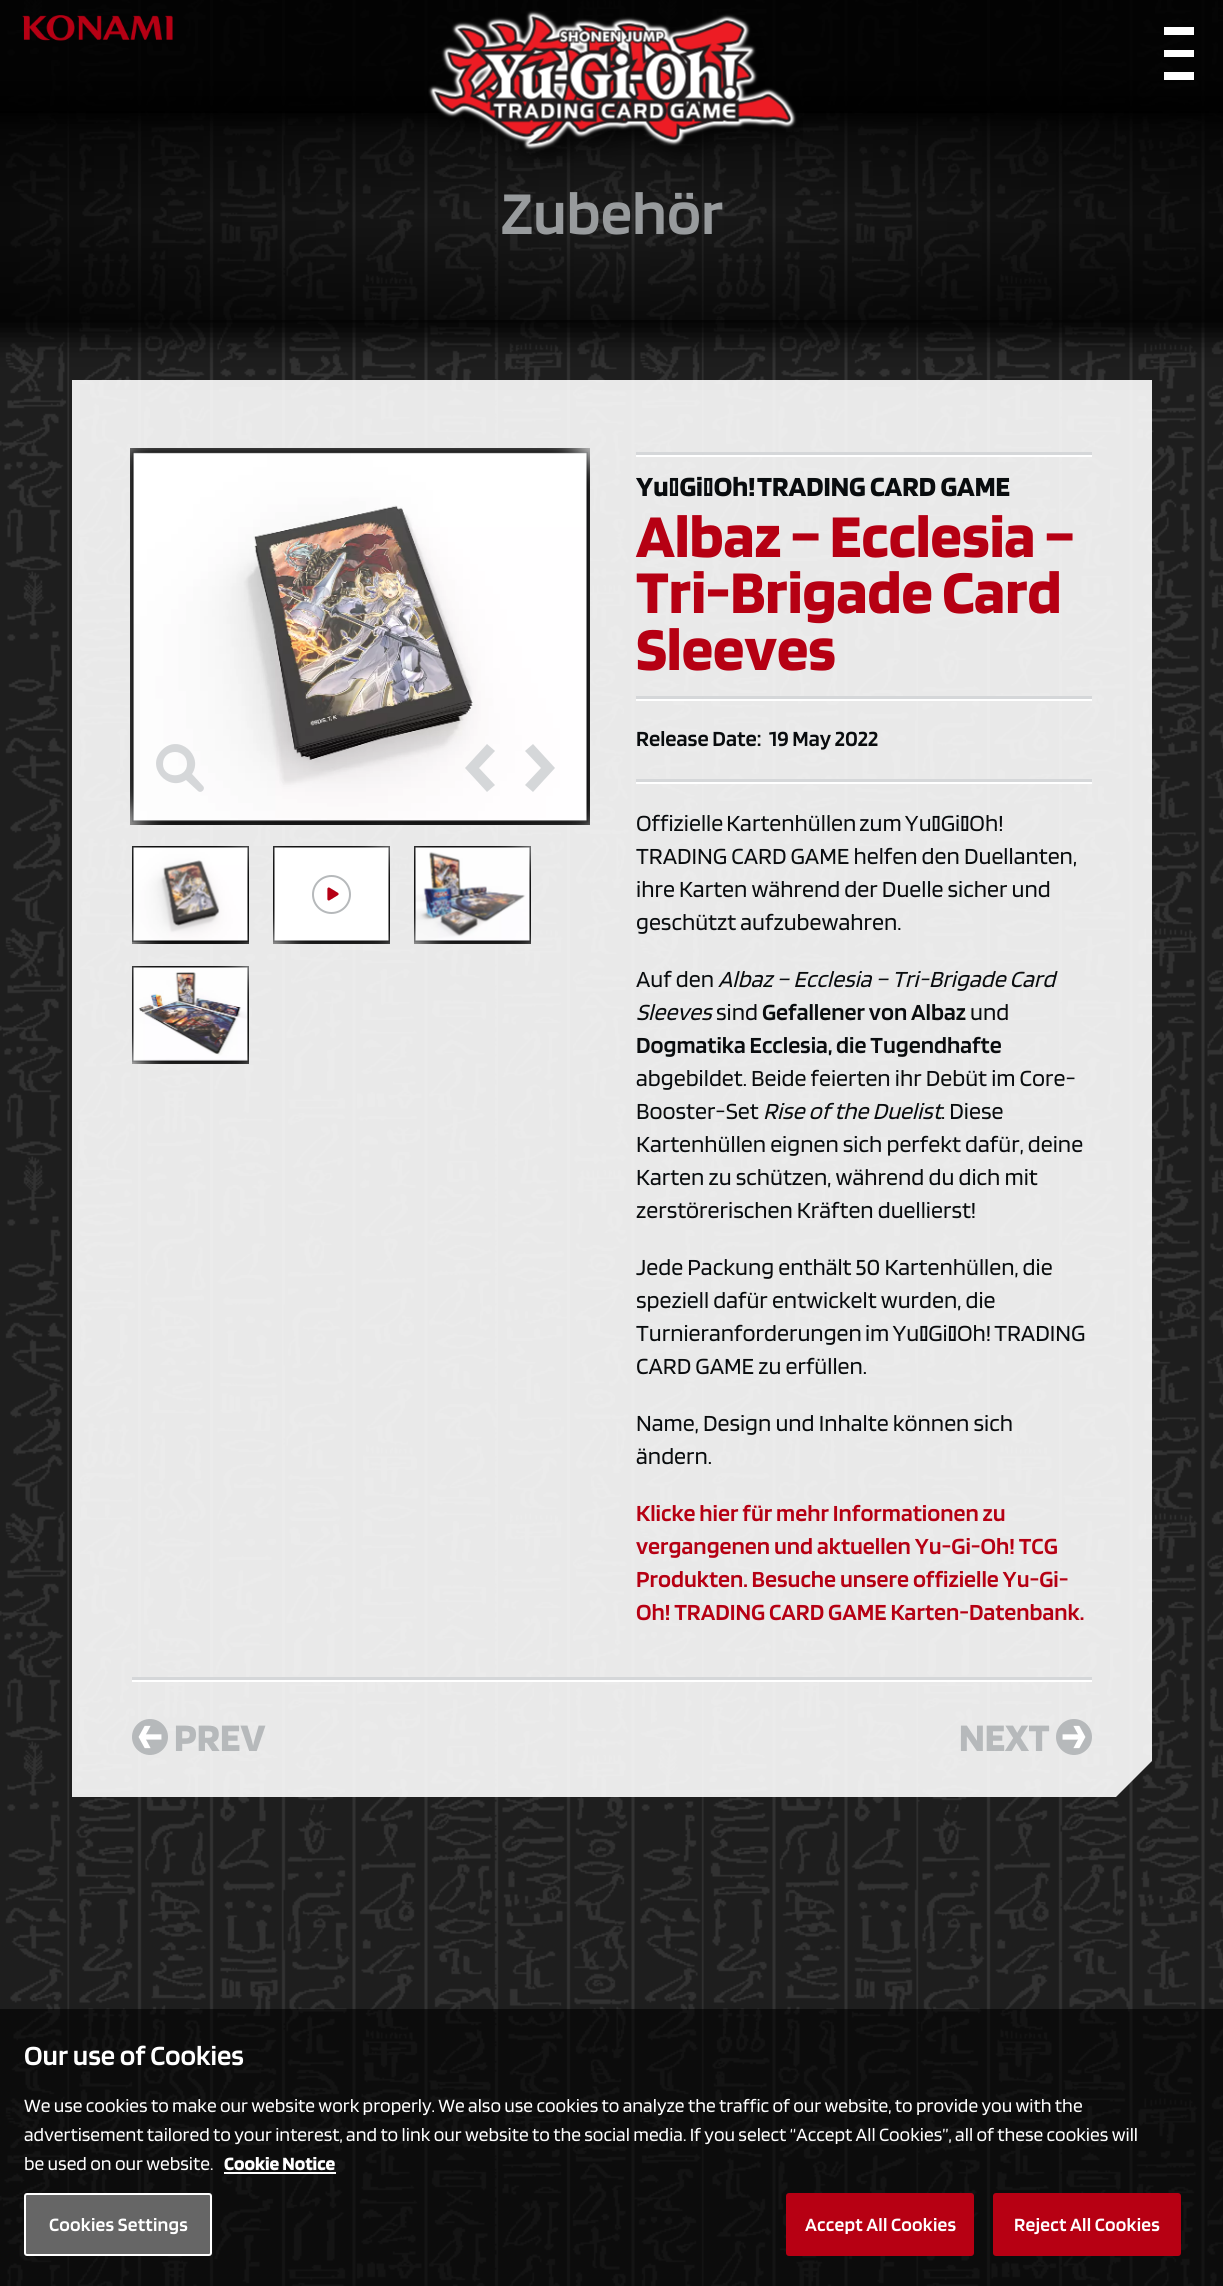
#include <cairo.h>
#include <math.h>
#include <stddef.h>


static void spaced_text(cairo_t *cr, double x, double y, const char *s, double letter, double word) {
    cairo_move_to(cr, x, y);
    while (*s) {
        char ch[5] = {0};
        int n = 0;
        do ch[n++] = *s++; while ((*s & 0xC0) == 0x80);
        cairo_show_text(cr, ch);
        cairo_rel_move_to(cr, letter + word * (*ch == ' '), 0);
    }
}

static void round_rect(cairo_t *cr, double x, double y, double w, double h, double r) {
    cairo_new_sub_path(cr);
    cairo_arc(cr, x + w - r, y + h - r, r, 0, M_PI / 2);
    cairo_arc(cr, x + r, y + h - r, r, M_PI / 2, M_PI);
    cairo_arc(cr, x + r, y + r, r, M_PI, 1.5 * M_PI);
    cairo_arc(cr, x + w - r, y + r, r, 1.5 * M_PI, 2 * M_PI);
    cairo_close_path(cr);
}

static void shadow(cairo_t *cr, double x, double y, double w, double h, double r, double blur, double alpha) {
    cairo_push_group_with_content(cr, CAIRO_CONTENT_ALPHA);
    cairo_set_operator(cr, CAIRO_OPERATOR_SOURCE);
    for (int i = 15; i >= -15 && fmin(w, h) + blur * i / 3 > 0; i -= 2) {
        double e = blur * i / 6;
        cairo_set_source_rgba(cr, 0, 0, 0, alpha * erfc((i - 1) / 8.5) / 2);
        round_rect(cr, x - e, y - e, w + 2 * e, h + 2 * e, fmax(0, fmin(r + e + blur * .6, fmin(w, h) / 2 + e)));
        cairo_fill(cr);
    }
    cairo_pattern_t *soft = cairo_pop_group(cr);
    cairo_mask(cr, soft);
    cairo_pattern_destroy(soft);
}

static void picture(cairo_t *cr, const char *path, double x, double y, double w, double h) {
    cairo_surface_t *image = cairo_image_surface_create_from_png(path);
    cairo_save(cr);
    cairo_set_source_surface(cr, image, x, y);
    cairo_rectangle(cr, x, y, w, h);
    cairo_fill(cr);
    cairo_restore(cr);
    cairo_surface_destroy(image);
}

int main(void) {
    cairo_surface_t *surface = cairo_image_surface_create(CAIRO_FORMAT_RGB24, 1223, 2286);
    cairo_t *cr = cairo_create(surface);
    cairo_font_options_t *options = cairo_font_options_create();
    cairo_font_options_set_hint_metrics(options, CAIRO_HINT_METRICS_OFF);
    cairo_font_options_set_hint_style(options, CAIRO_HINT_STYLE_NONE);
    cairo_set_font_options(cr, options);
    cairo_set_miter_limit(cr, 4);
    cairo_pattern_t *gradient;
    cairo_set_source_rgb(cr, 1, 1, 1);
    cairo_paint(cr);
    picture(cr, "img1.png", 0, 0, 1223, 2286);
    cairo_save(cr);
    cairo_set_fill_rule(cr, CAIRO_FILL_RULE_EVEN_ODD);
    cairo_new_path(cr);
    cairo_move_to(cr, 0, 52);
    cairo_line_to(cr, 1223, 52);
    cairo_line_to(cr, 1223, 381);
    cairo_line_to(cr, 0, 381);
    cairo_close_path(cr);
    cairo_move_to(cr, 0, 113);
    cairo_line_to(cr, 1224, 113);
    cairo_line_to(cr, 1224, 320);
    cairo_line_to(cr, 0, 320);
    cairo_close_path(cr);
    cairo_clip(cr);
    cairo_set_source_rgb(cr, 0, 0, 0);
    shadow(cr, -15, 98, 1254, 237, 0, 15, 1);
    cairo_restore(cr);
    gradient = cairo_pattern_create_linear(0, 216, 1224, 216);
    cairo_pattern_add_color_stop_rgba(gradient, 0, 0, 0, 0, 0.6);
    cairo_pattern_add_color_stop_rgba(gradient, 0.5, 0, 0, 0, 0.05);
    cairo_pattern_add_color_stop_rgba(gradient, 1, 0, 0, 0, 0.6);
    cairo_set_source(cr, gradient);
    cairo_pattern_destroy(gradient);
    cairo_rectangle(cr, 0, 113, 1223, 207);
    cairo_fill(cr);
    gradient = cairo_pattern_create_linear(612, 112, 612, 320);
    cairo_pattern_add_color_stop_rgba(gradient, 0, 0, 0, 0, 0.6);
    cairo_pattern_add_color_stop_rgba(gradient, 0.5, 0, 0, 0, 0.05);
    cairo_pattern_add_color_stop_rgba(gradient, 1, 0, 0, 0, 0.6);
    cairo_set_source(cr, gradient);
    cairo_pattern_destroy(gradient);
    cairo_rectangle(cr, 0, 113, 1223, 207);
    cairo_fill(cr);
    cairo_save(cr);
    cairo_set_fill_rule(cr, CAIRO_FILL_RULE_EVEN_ODD);
    cairo_new_path(cr);
    cairo_move_to(cr, 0, 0);
    cairo_line_to(cr, 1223, 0);
    cairo_line_to(cr, 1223, 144);
    cairo_line_to(cr, 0, 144);
    cairo_close_path(cr);
    cairo_move_to(cr, 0, 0);
    cairo_line_to(cr, 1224, 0);
    cairo_line_to(cr, 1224, 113);
    cairo_line_to(cr, 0, 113);
    cairo_close_path(cr);
    cairo_clip(cr);
    cairo_set_source_rgb(cr, 0, 0, 0);
    shadow(cr, -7, -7, 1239, 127, 0, 7.5, 0.75);
    cairo_restore(cr);
    cairo_set_source_rgba(cr, 0, 0, 0, 0.9);
    cairo_rectangle(cr, 0, 0, 1223, 113);
    cairo_fill(cr);
    picture(cr, "img2.png", 22, 15, 151, 26);
    picture(cr, "img3.png", 428, 10, 375, 153);
    cairo_set_source_rgb(cr, 1, 1, 1);
    cairo_rectangle(cr, 1164, 27, 30, 8);
    cairo_fill(cr);
    cairo_rectangle(cr, 1164, 50, 30, 7);
    cairo_fill(cr);
    cairo_rectangle(cr, 1164, 72, 30, 8);
    cairo_fill(cr);
    cairo_select_font_face(cr, "Blinker SemiBold", CAIRO_FONT_SLANT_NORMAL, CAIRO_FONT_WEIGHT_NORMAL);
    cairo_set_font_size(cr, 63);
    cairo_set_source_rgb(cr, 0.596, 0.608, 0.616);
    cairo_move_to(cr, 501, 234);
    cairo_show_text(cr, "Zubehör");
    cairo_set_source_rgba(cr, 1, 1, 1, 0.9);
    cairo_new_path(cr);
    cairo_move_to(cr, 72, 380);
    cairo_line_to(cr, 72, 1797);
    cairo_line_to(cr, 1116, 1797);
    cairo_line_to(cr, 1152, 1761);
    cairo_line_to(cr, 1152, 380);
    cairo_close_path(cr);
    cairo_fill(cr);
    cairo_rectangle(cr, 133, 453, 454, 368);
    cairo_set_source_rgb(cr, 0.835, 0.843, 0.851);
    cairo_stroke(cr);
    picture(cr, "img4.png", 130, 448, 460, 377);
    cairo_new_path(cr);
    cairo_move_to(cr, 487, 792);
    cairo_line_to(cr, 495, 785);
    cairo_line_to(cr, 479, 768);
    cairo_line_to(cr, 495, 751);
    cairo_line_to(cr, 487, 744);
    cairo_line_to(cr, 465, 768);
    cairo_close_path(cr);
    cairo_fill(cr);
    cairo_new_path(cr);
    cairo_move_to(cr, 533, 792);
    cairo_line_to(cr, 525, 785);
    cairo_line_to(cr, 541, 768);
    cairo_line_to(cr, 525, 751);
    cairo_line_to(cr, 533, 744);
    cairo_line_to(cr, 555, 768);
    cairo_close_path(cr);
    cairo_fill(cr);
    cairo_new_path(cr);
    cairo_move_to(cr, 203, 786);
    cairo_line_to(cr, 192, 774);
    cairo_curve_to(cr, 204, 756, 179, 733, 162, 750);
    cairo_curve_to(cr, 145, 767, 168, 792, 186, 780);
    cairo_line_to(cr, 198, 791);
    cairo_curve_to(cr, 201, 794, 206, 789, 203, 786);
    cairo_close_path(cr);
    cairo_move_to(cr, 163, 764);
    cairo_curve_to(cr, 163, 748, 187, 748, 187, 764);
    cairo_curve_to(cr, 187, 779, 163, 779, 163, 764);
    cairo_close_path(cr);
    cairo_fill(cr);
    cairo_rectangle(cr, 133, 847, 115, 94);
    cairo_set_source_rgb(cr, 0.596, 0.608, 0.616);
    cairo_stroke(cr);
    picture(cr, "img5.png", 132, 846, 117, 98);
    cairo_rectangle(cr, 274, 847, 115, 94);
    cairo_set_source_rgb(cr, 0.835, 0.843, 0.851);
    cairo_stroke(cr);
    picture(cr, "img6.png", 273, 846, 117, 98);
    cairo_arc(cr, 331.5, 894.5, 18.5, 0, 2 * M_PI);
    cairo_set_source_rgb(cr, 0.714, 0.725, 0.733);
    cairo_stroke(cr);
    picture(cr, "img7.png", 327, 887, 12, 14);
    cairo_rectangle(cr, 415, 847, 115, 94);
    cairo_set_source_rgb(cr, 0.835, 0.843, 0.851);
    cairo_stroke(cr);
    picture(cr, "img8.png", 414, 846, 117, 98);
    cairo_rectangle(cr, 133, 967, 115, 94);
    cairo_stroke(cr);
    picture(cr, "img9.png", 132, 966, 117, 98);
    cairo_rectangle(cr, 636, 452, 456, 3);
    cairo_fill(cr);
    cairo_set_source_rgb(cr, 1, 1, 1);
    cairo_rectangle(cr, 636, 455, 456, 2);
    cairo_fill(cr);
    cairo_select_font_face(cr, "Blinker", CAIRO_FONT_SLANT_NORMAL, CAIRO_FONT_WEIGHT_BOLD);
    cairo_set_font_size(cr, 28.75);
    cairo_set_source_rgb(cr, 0.039, 0.047, 0.055);
    cairo_move_to(cr, 636, 496);
    cairo_show_text(cr, "Yu‑Gi‑Oh!");
    cairo_move_to(cr, 757, 496);
    cairo_show_text(cr, "TRADING CARD GAME");
    cairo_set_font_size(cr, 63);
    cairo_set_source_rgb(cr, 0.714, 0, 0.078);
    cairo_move_to(cr, 636, 557);
    cairo_show_text(cr, "Albaz – Ecclesia –");
    cairo_move_to(cr, 636, 613);
    cairo_show_text(cr, "Tri-Brigade Card");
    cairo_move_to(cr, 636, 670);
    cairo_show_text(cr, "Sleeves");
    cairo_set_source_rgb(cr, 0.835, 0.843, 0.851);
    cairo_rectangle(cr, 636, 696, 456, 3);
    cairo_fill(cr);
    cairo_set_source_rgb(cr, 1, 1, 1);
    cairo_rectangle(cr, 636, 699, 456, 2);
    cairo_fill(cr);
    cairo_select_font_face(cr, "Blinker SemiBold", CAIRO_FONT_SLANT_NORMAL, CAIRO_FONT_WEIGHT_NORMAL);
    cairo_set_font_size(cr, 22.5);
    cairo_set_source_rgb(cr, 0.039, 0.047, 0.055);
    cairo_move_to(cr, 636, 746);
    cairo_show_text(cr, "Release Date:");
    cairo_move_to(cr, 769, 746);
    cairo_show_text(cr, "19 May 2022");
    cairo_set_source_rgb(cr, 0.835, 0.843, 0.851);
    cairo_rectangle(cr, 636, 779, 456, 3);
    cairo_fill(cr);
    cairo_set_source_rgb(cr, 1, 1, 1);
    cairo_rectangle(cr, 636, 782, 456, 2);
    cairo_fill(cr);
    cairo_select_font_face(cr, "Blinker", CAIRO_FONT_SLANT_NORMAL, CAIRO_FONT_WEIGHT_NORMAL);
    cairo_set_font_size(cr, 24);
    cairo_set_source_rgb(cr, 0.039, 0.047, 0.055);
    spaced_text(cr, 636, 831, "Offizielle Kartenhüllen zum Yu‑Gi‑Oh!", 0, -1);
    cairo_move_to(cr, 636, 864);
    cairo_show_text(cr, "TRADING CARD GAME helfen den Duellanten,");
    cairo_move_to(cr, 636, 897);
    cairo_show_text(cr, "ihre Karten während der Duelle sicher und");
    cairo_move_to(cr, 636, 930);
    cairo_show_text(cr, "geschützt aufzubewahren.");
    cairo_move_to(cr, 636, 987);
    cairo_show_text(cr, "Auf den");
    cairo_select_font_face(cr, "Blinker", CAIRO_FONT_SLANT_ITALIC, CAIRO_FONT_WEIGHT_NORMAL);
    cairo_move_to(cr, 718, 987);
    cairo_show_text(cr, "Albaz – Ecclesia – Tri-Brigade Card");
    cairo_move_to(cr, 636, 1020);
    cairo_show_text(cr, "Sleeves");
    cairo_select_font_face(cr, "Blinker", CAIRO_FONT_SLANT_NORMAL, CAIRO_FONT_WEIGHT_NORMAL);
    cairo_move_to(cr, 716, 1020);
    cairo_show_text(cr, "sind");
    cairo_select_font_face(cr, "Blinker SemiBold", CAIRO_FONT_SLANT_NORMAL, CAIRO_FONT_WEIGHT_NORMAL);
    cairo_move_to(cr, 762, 1020);
    cairo_show_text(cr, "Gefallener von Albaz");
    cairo_select_font_face(cr, "Blinker", CAIRO_FONT_SLANT_NORMAL, CAIRO_FONT_WEIGHT_NORMAL);
    cairo_move_to(cr, 970, 1020);
    cairo_show_text(cr, "und");
    cairo_select_font_face(cr, "Blinker SemiBold", CAIRO_FONT_SLANT_NORMAL, CAIRO_FONT_WEIGHT_NORMAL);
    cairo_move_to(cr, 636, 1053);
    cairo_show_text(cr, "Dogmatika Ecclesia, die Tugendhafte");
    cairo_select_font_face(cr, "Blinker", CAIRO_FONT_SLANT_NORMAL, CAIRO_FONT_WEIGHT_NORMAL);
    cairo_move_to(cr, 636, 1086);
    cairo_show_text(cr, "abgebildet. Beide feierten ihr Debüt im Core-");
    cairo_move_to(cr, 636, 1119);
    cairo_show_text(cr, "Booster-Set");
    cairo_select_font_face(cr, "Blinker", CAIRO_FONT_SLANT_ITALIC, CAIRO_FONT_WEIGHT_NORMAL);
    cairo_move_to(cr, 763, 1119);
    cairo_show_text(cr, "Rise of the Duelist");
    cairo_select_font_face(cr, "Blinker", CAIRO_FONT_SLANT_NORMAL, CAIRO_FONT_WEIGHT_NORMAL);
    cairo_move_to(cr, 941, 1119);
    cairo_show_text(cr, ". Diese");
    cairo_move_to(cr, 636, 1152);
    cairo_show_text(cr, "Kartenhüllen eignen sich perfekt dafür, deine");
    cairo_move_to(cr, 636, 1185);
    cairo_show_text(cr, "Karten zu schützen, während du dich mit");
    cairo_move_to(cr, 636, 1218);
    cairo_show_text(cr, "zerstörerischen Kräften duellierst!");
    cairo_move_to(cr, 636, 1275);
    cairo_show_text(cr, "Jede Packung enthält 50 Kartenhüllen, die");
    cairo_move_to(cr, 636, 1308);
    cairo_show_text(cr, "speziell dafür entwickelt wurden, die");
    spaced_text(cr, 636, 1341, "Turnieranforderungen im Yu‑Gi‑Oh! TRADING", 0, -1);
    cairo_move_to(cr, 636, 1374);
    cairo_show_text(cr, "CARD GAME zu erfüllen.");
    cairo_move_to(cr, 636, 1431);
    cairo_show_text(cr, "Name, Design und Inhalte können sich");
    cairo_move_to(cr, 636, 1464);
    cairo_show_text(cr, "ändern.");
    cairo_select_font_face(cr, "Blinker SemiBold", CAIRO_FONT_SLANT_NORMAL, CAIRO_FONT_WEIGHT_NORMAL);
    cairo_set_source_rgb(cr, 0.714, 0, 0.078);
    cairo_move_to(cr, 636, 1521);
    cairo_show_text(cr, "Klicke hier für mehr Informationen zu");
    cairo_move_to(cr, 636, 1554);
    cairo_show_text(cr, "vergangenen und aktuellen Yu-Gi-Oh! TCG");
    cairo_move_to(cr, 636, 1587);
    cairo_show_text(cr, "Produkten. Besuche unsere offizielle Yu-Gi-");
    cairo_move_to(cr, 636, 1620);
    cairo_show_text(cr, "Oh! TRADING CARD GAME Karten-Datenbank.");
    cairo_set_source_rgb(cr, 0.835, 0.843, 0.851);
    cairo_rectangle(cr, 132, 1677, 960, 3);
    cairo_fill(cr);
    cairo_set_source_rgb(cr, 1, 1, 1);
    cairo_rectangle(cr, 132, 1680, 960, 2);
    cairo_fill(cr);
    picture(cr, "img10.png", 132, 1719, 36, 36);
    cairo_select_font_face(cr, "Blinker", CAIRO_FONT_SLANT_NORMAL, CAIRO_FONT_WEIGHT_BOLD);
    cairo_set_font_size(cr, 40.5);
    cairo_set_source_rgb(cr, 0.714, 0.725, 0.733);
    cairo_move_to(cr, 174, 1751);
    cairo_show_text(cr, "PREV");
    cairo_move_to(cr, 959, 1751);
    cairo_show_text(cr, "NEXT");
    picture(cr, "img11.png", 1056, 1719, 36, 36);
    cairo_set_source_rgba(cr, 0, 0, 0, 0.6);
    cairo_rectangle(cr, 0, 2009, 1223, 277);
    cairo_fill(cr);
    cairo_select_font_face(cr, "Blinker SemiBold", CAIRO_FONT_SLANT_NORMAL, CAIRO_FONT_WEIGHT_NORMAL);
    cairo_set_font_size(cr, 28.75);
    cairo_set_source_rgb(cr, 1, 1, 1);
    cairo_move_to(cr, 24, 2065);
    cairo_show_text(cr, "Our use of Cookies");
    cairo_select_font_face(cr, "Blinker", CAIRO_FONT_SLANT_NORMAL, CAIRO_FONT_WEIGHT_NORMAL);
    cairo_set_font_size(cr, 19.5);
    cairo_move_to(cr, 24, 2112);
    cairo_show_text(cr, "We use cookies to make our website work properly. We also use cookies to analyze the traffic of our website, to provide you with the");
    cairo_move_to(cr, 24, 2141);
    cairo_show_text(cr, "advertisement tailored to your interest, and to link our website to the social media. If you select “Accept All Cookies”, all of these cookies will");
    cairo_move_to(cr, 24, 2170);
    cairo_show_text(cr, "be used on our website.");
    cairo_select_font_face(cr, "Blinker", CAIRO_FONT_SLANT_NORMAL, CAIRO_FONT_WEIGHT_BOLD);
    cairo_move_to(cr, 224, 2170);
    cairo_show_text(cr, "Cookie Notice");
    cairo_rectangle(cr, 224, 2172, 112, 2);
    cairo_fill(cr);
    cairo_set_source_rgb(cr, 0.4, 0.4, 0.4);
    round_rect(cr, 25, 2194, 186, 61, 2);
    cairo_fill_preserve(cr);
    cairo_set_source_rgb(cr, 1, 1, 1);
    cairo_stroke(cr);
    cairo_select_font_face(cr, "Blinker SemiBold", CAIRO_FONT_SLANT_NORMAL, CAIRO_FONT_WEIGHT_NORMAL);
    spaced_text(cr, 49, 2231, "Cookies Settings", 0.25, 0);
    cairo_set_source_rgb(cr, 0.718, 0, 0.078);
    round_rect(cr, 787, 2194, 186, 61, 2);
    cairo_fill_preserve(cr);
    cairo_stroke(cr);
    cairo_set_source_rgb(cr, 1, 1, 1);
    spaced_text(cr, 805, 2231, "Accept All Cookies", 0.25, 0);
    cairo_set_source_rgb(cr, 0.718, 0, 0.078);
    round_rect(cr, 994, 2194, 186, 61, 2);
    cairo_fill_preserve(cr);
    cairo_stroke(cr);
    cairo_set_source_rgb(cr, 1, 1, 1);
    spaced_text(cr, 1014, 2231, "Reject All Cookies", 0.25, 0);
    cairo_surface_write_to_png(surface, "page.png");
    cairo_font_options_destroy(options);
    cairo_destroy(cr);
    cairo_surface_destroy(surface);
    return 0;
}
